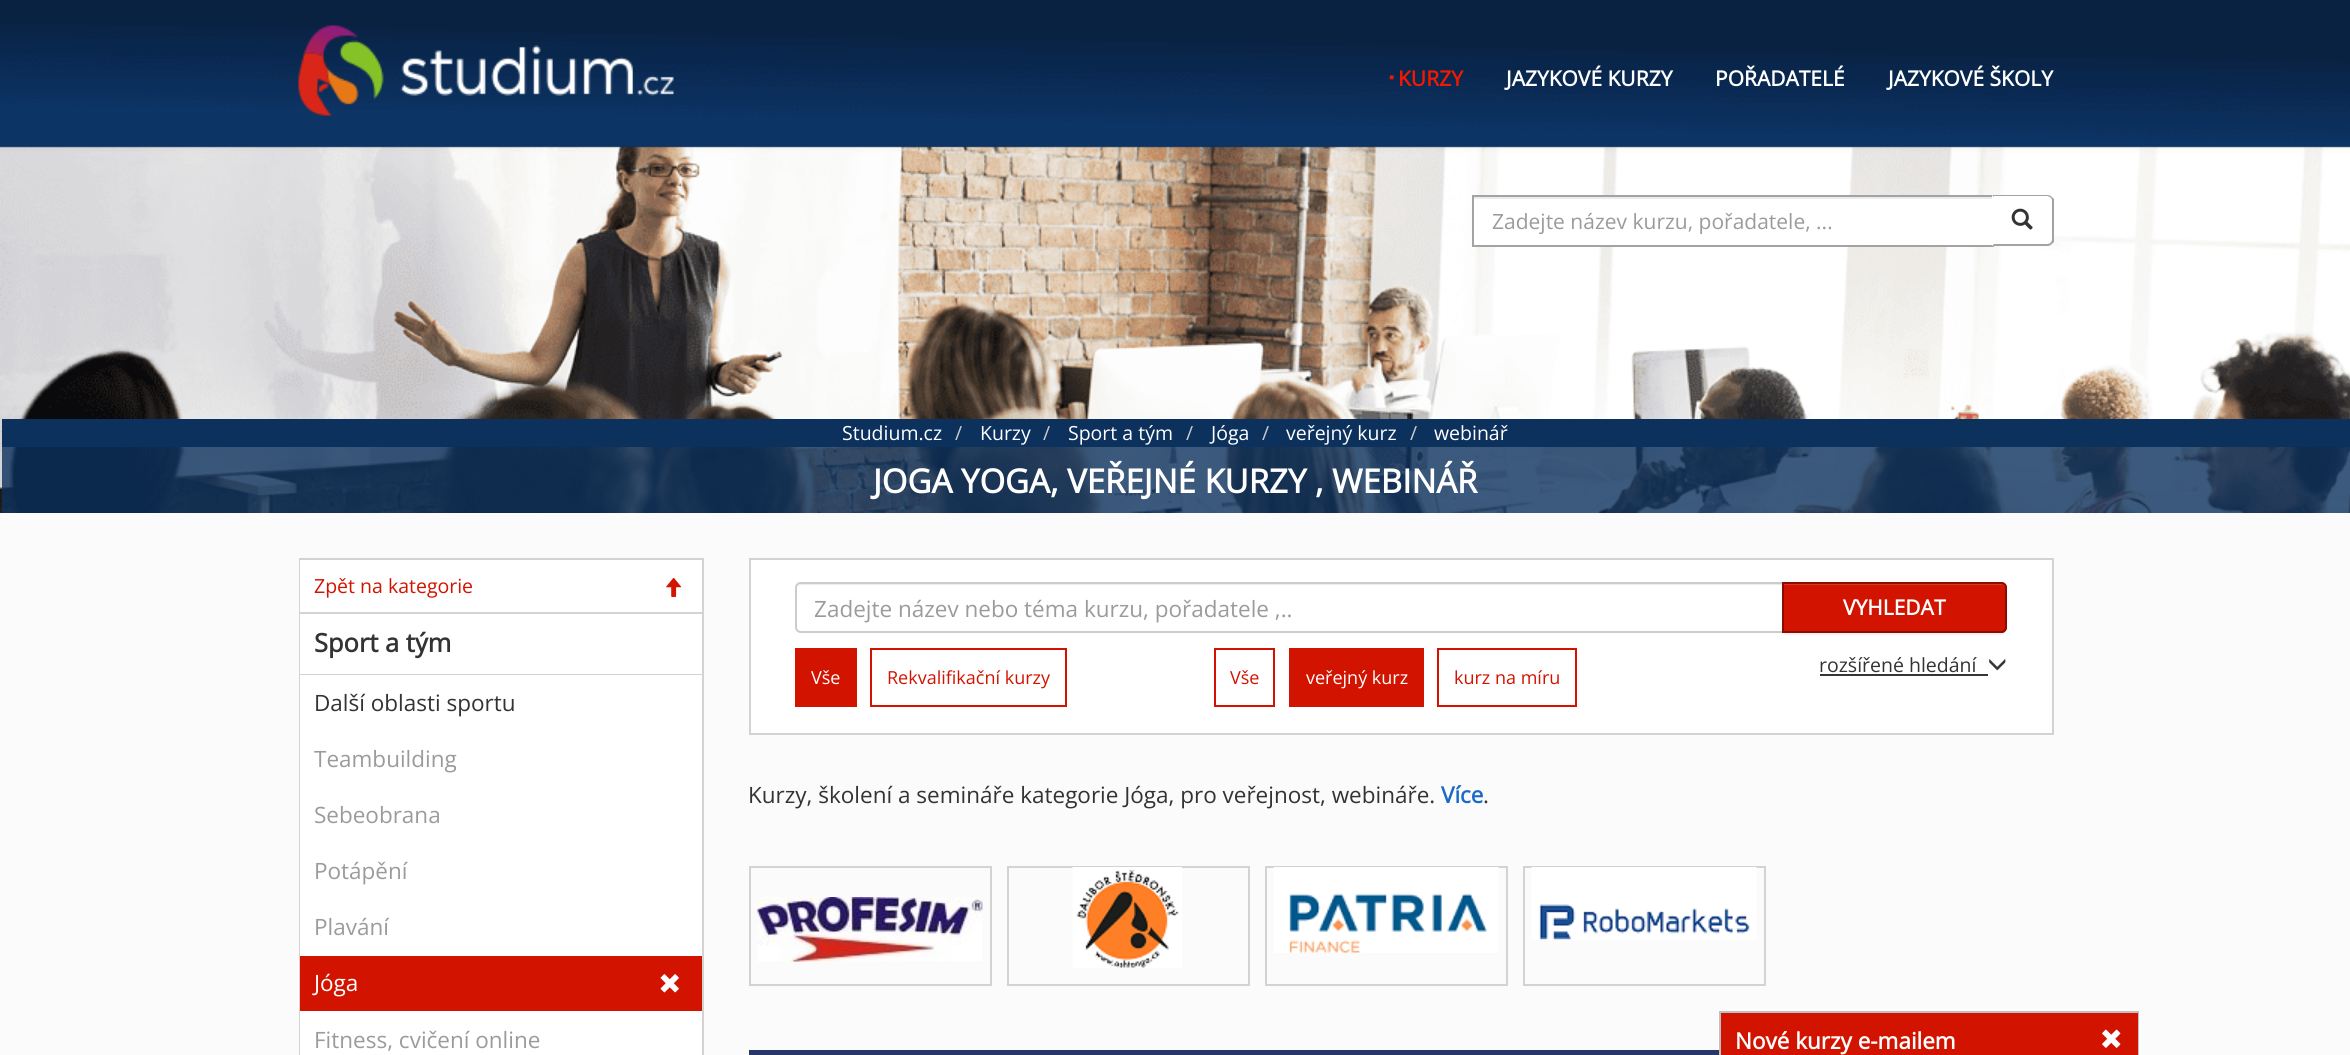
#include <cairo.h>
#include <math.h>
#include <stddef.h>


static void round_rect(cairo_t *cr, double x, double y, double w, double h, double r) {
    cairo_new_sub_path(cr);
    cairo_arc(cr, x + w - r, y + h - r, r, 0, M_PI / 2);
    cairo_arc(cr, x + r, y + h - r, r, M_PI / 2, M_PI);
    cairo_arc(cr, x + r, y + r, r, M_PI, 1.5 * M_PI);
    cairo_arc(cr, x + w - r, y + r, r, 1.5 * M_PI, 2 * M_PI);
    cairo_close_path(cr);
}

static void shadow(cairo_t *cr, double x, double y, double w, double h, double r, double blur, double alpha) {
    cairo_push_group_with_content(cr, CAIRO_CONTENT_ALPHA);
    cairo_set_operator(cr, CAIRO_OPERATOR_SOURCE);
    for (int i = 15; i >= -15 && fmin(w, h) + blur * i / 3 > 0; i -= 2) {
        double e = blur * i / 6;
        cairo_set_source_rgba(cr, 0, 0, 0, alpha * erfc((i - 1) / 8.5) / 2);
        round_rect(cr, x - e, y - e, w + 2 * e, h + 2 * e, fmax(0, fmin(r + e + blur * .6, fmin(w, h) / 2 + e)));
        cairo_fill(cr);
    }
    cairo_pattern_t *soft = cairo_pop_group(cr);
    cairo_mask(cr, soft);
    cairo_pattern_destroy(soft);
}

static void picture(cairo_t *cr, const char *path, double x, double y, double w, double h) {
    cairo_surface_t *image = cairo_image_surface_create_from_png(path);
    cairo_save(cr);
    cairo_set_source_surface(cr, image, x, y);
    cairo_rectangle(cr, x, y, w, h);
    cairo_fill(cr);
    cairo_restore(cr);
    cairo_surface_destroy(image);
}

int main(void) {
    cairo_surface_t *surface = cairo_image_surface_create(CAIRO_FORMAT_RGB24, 2350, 1055);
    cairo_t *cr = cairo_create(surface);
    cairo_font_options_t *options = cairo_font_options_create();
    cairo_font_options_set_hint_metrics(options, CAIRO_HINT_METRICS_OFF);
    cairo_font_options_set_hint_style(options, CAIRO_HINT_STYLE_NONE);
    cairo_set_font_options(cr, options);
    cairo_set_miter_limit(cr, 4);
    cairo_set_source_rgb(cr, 0.984, 0.984, 0.984);
    cairo_paint(cr);
    picture(cr, "img1.png", 0, 0, 2350, 513);
    picture(cr, "img2.png", 298, 25, 376, 91);
    cairo_select_font_face(cr, "Liberation Sans", CAIRO_FONT_SLANT_NORMAL, CAIRO_FONT_WEIGHT_BOLD);
    cairo_set_font_size(cr, 15);
    cairo_set_source_rgb(cr, 0.957, 0.094, 0);
    cairo_move_to(cr, 1389, 82);
    cairo_show_text(cr, "▪");
    cairo_select_font_face(cr, "Open Sans", CAIRO_FONT_SLANT_NORMAL, CAIRO_FONT_WEIGHT_BOLD);
    cairo_set_font_size(cr, 21);
    cairo_move_to(cr, 1398, 86);
    cairo_show_text(cr, "KURZY");
    cairo_set_source_rgb(cr, 1, 1, 1);
    cairo_move_to(cr, 1506, 86);
    cairo_show_text(cr, "JAZYKOVÉ KURZY");
    cairo_move_to(cr, 1715, 86);
    cairo_show_text(cr, "POŘADATELÉ");
    cairo_move_to(cr, 1888, 86);
    cairo_show_text(cr, "JAZYKOVÉ ŠKOLY");
    cairo_rectangle(cr, 1474, 199, 518, 46);
    cairo_fill(cr);
    cairo_set_source_rgb(cr, 0.925, 0.925, 0.925);
    cairo_rectangle(cr, 1473, 197, 519, 2);
    cairo_fill(cr);
    cairo_set_source_rgb(cr, 0.639, 0.639, 0.639);
    cairo_rectangle(cr, 1472, 195, 522, 2);
    cairo_fill(cr);
    cairo_rectangle(cr, 1472, 245, 522, 2);
    cairo_fill(cr);
    cairo_rectangle(cr, 1472, 195, 2, 51);
    cairo_fill(cr);
    cairo_select_font_face(cr, "Open Sans", CAIRO_FONT_SLANT_NORMAL, CAIRO_FONT_WEIGHT_NORMAL);
    cairo_set_source_rgb(cr, 0.608, 0.608, 0.608);
    cairo_move_to(cr, 1492, 229);
    cairo_show_text(cr, "Zadejte název kurzu, pořadatele, ...");
    cairo_set_source_rgb(cr, 1, 1, 1);
    cairo_new_path(cr);
    cairo_move_to(cr, 1992, 195);
    cairo_line_to(cr, 2048, 195);
    cairo_curve_to(cr, 2051.5, 195, 2054, 197.5, 2054, 201);
    cairo_line_to(cr, 2054, 240);
    cairo_curve_to(cr, 2054, 243.5, 2051.5, 246, 2048, 246);
    cairo_line_to(cr, 1992, 246);
    cairo_close_path(cr);
    cairo_fill(cr);
    cairo_set_source_rgb(cr, 0.639, 0.639, 0.639);
    cairo_new_path(cr);
    cairo_move_to(cr, 1992, 195);
    cairo_line_to(cr, 1994, 197);
    cairo_line_to(cr, 1994, 196);
    cairo_line_to(cr, 2048, 196);
    cairo_line_to(cr, 2051, 198);
    cairo_line_to(cr, 2052, 197);
    cairo_curve_to(cr, 2051, 196, 2049, 195, 2048, 195);
    cairo_close_path(cr);
    cairo_fill(cr);
    cairo_new_path(cr);
    cairo_move_to(cr, 2054, 242);
    cairo_line_to(cr, 2052, 244);
    cairo_line_to(cr, 2050, 243);
    cairo_curve_to(cr, 2051, 242, 2052, 241, 2052, 240);
    cairo_line_to(cr, 2052, 201);
    cairo_curve_to(cr, 2052, 200, 2052, 199, 2051, 198);
    cairo_line_to(cr, 2052, 197);
    cairo_line_to(cr, 2054, 199);
    cairo_close_path(cr);
    cairo_fill(cr);
    cairo_new_path(cr);
    cairo_move_to(cr, 2048, 246);
    cairo_curve_to(cr, 2049, 246, 2051, 245, 2052, 244);
    cairo_line_to(cr, 2050, 243);
    cairo_line_to(cr, 2048, 244);
    cairo_line_to(cr, 1994, 244);
    cairo_line_to(cr, 1992, 246);
    cairo_close_path(cr);
    cairo_fill(cr);
    picture(cr, "img3.png", 2011, 208, 22, 22);
    cairo_set_source_rgba(cr, 0.047, 0.192, 0.365, 0.8);
    cairo_rectangle(cr, 2, 447, 2348, 66);
    cairo_fill(cr);
    cairo_set_source_rgb(cr, 0.047, 0.192, 0.365);
    cairo_rectangle(cr, 2, 419, 2348, 28);
    cairo_fill(cr);
    cairo_set_font_size(cr, 19.5);
    cairo_set_source_rgb(cr, 1, 1, 1);
    cairo_move_to(cr, 842, 440);
    cairo_show_text(cr, "Studium.cz");
    cairo_set_source_rgb(cr, 0.8, 0.8, 0.8);
    cairo_move_to(cr, 955, 440);
    cairo_show_text(cr, "/");
    cairo_set_source_rgb(cr, 1, 1, 1);
    cairo_move_to(cr, 980, 440);
    cairo_show_text(cr, "Kurzy");
    cairo_set_source_rgb(cr, 0.8, 0.8, 0.8);
    cairo_move_to(cr, 1043, 440);
    cairo_show_text(cr, "/");
    cairo_set_source_rgb(cr, 1, 1, 1);
    cairo_move_to(cr, 1068, 440);
    cairo_show_text(cr, "Sport a tým");
    cairo_set_source_rgb(cr, 0.8, 0.8, 0.8);
    cairo_move_to(cr, 1186, 440);
    cairo_show_text(cr, "/");
    cairo_set_source_rgb(cr, 1, 1, 1);
    cairo_move_to(cr, 1211, 440);
    cairo_show_text(cr, "Jóga");
    cairo_set_source_rgb(cr, 0.8, 0.8, 0.8);
    cairo_move_to(cr, 1262, 440);
    cairo_show_text(cr, "/");
    cairo_set_source_rgb(cr, 1, 1, 1);
    cairo_move_to(cr, 1286, 440);
    cairo_show_text(cr, "veřejný kurz");
    cairo_set_source_rgb(cr, 0.8, 0.8, 0.8);
    cairo_move_to(cr, 1410, 440);
    cairo_show_text(cr, "/");
    cairo_set_source_rgb(cr, 1, 1, 1);
    cairo_move_to(cr, 1434, 440);
    cairo_show_text(cr, "webinář");
    cairo_select_font_face(cr, "Open Sans", CAIRO_FONT_SLANT_NORMAL, CAIRO_FONT_WEIGHT_BOLD);
    cairo_set_font_size(cr, 33);
    cairo_move_to(cr, 873, 493);
    cairo_show_text(cr, "JOGA YOGA, VEŘEJNÉ KURZY , WEBINÁŘ");
    cairo_rectangle(cr, 300, 559, 403, 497);
    cairo_set_source_rgb(cr, 0.827, 0.827, 0.827);
    cairo_stroke(cr);
    cairo_set_source_rgb(cr, 1, 1, 1);
    cairo_rectangle(cr, 300, 560, 402, 52);
    cairo_fill(cr);
    cairo_set_source_rgb(cr, 0.827, 0.827, 0.827);
    cairo_rectangle(cr, 300, 612, 402, 2);
    cairo_fill(cr);
    cairo_select_font_face(cr, "Open Sans", CAIRO_FONT_SLANT_NORMAL, CAIRO_FONT_WEIGHT_NORMAL);
    cairo_set_font_size(cr, 19.5);
    cairo_set_source_rgb(cr, 0.824, 0.078, 0);
    cairo_move_to(cr, 314, 593);
    cairo_show_text(cr, "Zpět na kategorie");
    picture(cr, "img4.png", 666, 577, 16, 20);
    cairo_set_source_rgb(cr, 1, 1, 1);
    cairo_rectangle(cr, 300, 614, 402, 60);
    cairo_fill(cr);
    cairo_set_source_rgb(cr, 0.827, 0.827, 0.827);
    cairo_rectangle(cr, 300, 674, 402, 1);
    cairo_fill(cr);
    cairo_select_font_face(cr, "Open Sans", CAIRO_FONT_SLANT_NORMAL, CAIRO_FONT_WEIGHT_BOLD);
    cairo_set_font_size(cr, 25.5);
    cairo_set_source_rgb(cr, 0.2, 0.2, 0.2);
    cairo_move_to(cr, 314, 652);
    cairo_show_text(cr, "Sport a tým");
    cairo_set_source_rgb(cr, 1, 1, 1);
    cairo_rectangle(cr, 300, 675, 402, 281);
    cairo_fill(cr);
    cairo_select_font_face(cr, "Open Sans", CAIRO_FONT_SLANT_NORMAL, CAIRO_FONT_WEIGHT_NORMAL);
    cairo_set_font_size(cr, 22.5);
    cairo_set_source_rgb(cr, 0.2, 0.2, 0.2);
    cairo_move_to(cr, 314, 711);
    cairo_show_text(cr, "Další oblasti sportu");
    cairo_set_source_rgb(cr, 0.608, 0.608, 0.608);
    cairo_move_to(cr, 314, 767);
    cairo_show_text(cr, "Teambuilding");
    cairo_move_to(cr, 314, 823);
    cairo_show_text(cr, "Sebeobrana");
    cairo_move_to(cr, 314, 879);
    cairo_show_text(cr, "Potápění");
    cairo_move_to(cr, 314, 935);
    cairo_show_text(cr, "Plavání");
    cairo_set_source_rgb(cr, 0.824, 0.078, 0);
    cairo_rectangle(cr, 300, 956, 402, 55);
    cairo_fill(cr);
    cairo_set_source_rgb(cr, 1, 1, 1);
    cairo_move_to(cr, 314, 991);
    cairo_show_text(cr, "Jóga");
    picture(cr, "img5.png", 660, 974, 19, 19);
    cairo_rectangle(cr, 300, 1011, 402, 44);
    cairo_fill(cr);
    cairo_set_source_rgb(cr, 0.608, 0.608, 0.608);
    cairo_move_to(cr, 314, 1048);
    cairo_show_text(cr, "Fitness, cvičení online");
    cairo_set_source_rgb(cr, 1, 1, 1);
    cairo_rectangle(cr, 750, 559, 1303, 175);
    cairo_fill_preserve(cr);
    cairo_set_source_rgb(cr, 0.827, 0.827, 0.827);
    cairo_stroke(cr);
    cairo_set_source_rgb(cr, 0.925, 0.925, 0.925);
    cairo_new_path(cr);
    cairo_move_to(cr, 801, 585);
    cairo_line_to(cr, 1782, 585);
    cairo_line_to(cr, 1782, 584);
    cairo_line_to(cr, 802, 584);
    cairo_curve_to(cr, 800, 584, 799, 585, 798, 586);
    cairo_close_path(cr);
    cairo_fill(cr);
    cairo_new_path(cr);
    cairo_move_to(cr, 801, 583);
    cairo_line_to(cr, 1783, 583);
    cairo_line_to(cr, 1783, 632);
    cairo_line_to(cr, 801, 632);
    cairo_curve_to(cr, 798, 632, 796, 630, 796, 627);
    cairo_line_to(cr, 796, 588);
    cairo_curve_to(cr, 796, 585, 798, 583, 801, 583);
    cairo_close_path(cr);
    cairo_set_source_rgb(cr, 0.8, 0.8, 0.8);
    cairo_stroke(cr);
    cairo_save(cr);
    cairo_rectangle(cr, 815, 593, 949, 30);
    cairo_clip(cr);
    cairo_set_source_rgb(cr, 0.608, 0.608, 0.608);
    cairo_move_to(cr, 814, 617);
    cairo_show_text(cr, "Zadejte název nebo téma kurzu, pořadatele ,..");
    cairo_restore(cr);
    cairo_set_source_rgb(cr, 0, 0, 0);
    shadow(cr, 1782, 584, 225, 51, 6, 1, 0.07);
    cairo_set_source_rgb(cr, 0.824, 0.078, 0);
    cairo_new_path(cr);
    cairo_move_to(cr, 1782, 582);
    cairo_line_to(cr, 2001, 582);
    cairo_curve_to(cr, 2004.5, 582, 2007, 584.5, 2007, 588);
    cairo_line_to(cr, 2007, 627);
    cairo_curve_to(cr, 2007, 630.5, 2004.5, 633, 2001, 633);
    cairo_line_to(cr, 1782, 633);
    cairo_close_path(cr);
    cairo_fill(cr);
    cairo_set_source_rgb(cr, 0.851, 0.216, 0.149);
    cairo_new_path(cr);
    cairo_move_to(cr, 1784, 585);
    cairo_line_to(cr, 2001, 585);
    cairo_curve_to(cr, 2003, 585, 2006, 587, 2006, 590);
    cairo_curve_to(cr, 2006, 587, 2004, 584, 2001, 584);
    cairo_line_to(cr, 1784, 584);
    cairo_close_path(cr);
    cairo_fill(cr);
    cairo_new_path(cr);
    cairo_move_to(cr, 1783, 583);
    cairo_line_to(cr, 2001, 583);
    cairo_curve_to(cr, 2004, 583, 2006, 585, 2006, 588);
    cairo_line_to(cr, 2006, 627);
    cairo_curve_to(cr, 2006, 630, 2004, 632, 2001, 632);
    cairo_line_to(cr, 1783, 632);
    cairo_close_path(cr);
    cairo_set_source_rgb(cr, 0.545, 0.051, 0);
    cairo_stroke(cr);
    cairo_select_font_face(cr, "Open Sans", CAIRO_FONT_SLANT_NORMAL, CAIRO_FONT_WEIGHT_BOLD);
    cairo_set_font_size(cr, 21);
    cairo_set_source_rgb(cr, 1, 1, 1);
    cairo_move_to(cr, 1843, 615);
    cairo_show_text(cr, "VYHLEDAT");
    cairo_select_font_face(cr, "Open Sans", CAIRO_FONT_SLANT_NORMAL, CAIRO_FONT_WEIGHT_NORMAL);
    cairo_set_font_size(cr, 19.5);
    cairo_set_source_rgb(cr, 0.2, 0.2, 0.2);
    cairo_move_to(cr, 1819, 672);
    cairo_show_text(cr, "rozšířené hledání");
    cairo_set_source_rgb(cr, 0.212, 0.212, 0.212);
    cairo_rectangle(cr, 1820, 674, 168, 2);
    cairo_fill(cr);
    picture(cr, "img6.png", 1989, 659, 17, 12);
    cairo_set_source_rgb(cr, 0.824, 0.078, 0);
    cairo_rectangle(cr, 795, 648, 62, 59);
    cairo_fill(cr);
    cairo_set_font_size(cr, 18);
    cairo_set_source_rgb(cr, 1, 1, 1);
    cairo_move_to(cr, 811, 684);
    cairo_show_text(cr, "Vše");
    cairo_rectangle(cr, 871, 649, 195, 57);
    cairo_set_source_rgb(cr, 0.824, 0.078, 0);
    cairo_stroke(cr);
    cairo_move_to(cr, 887, 684);
    cairo_show_text(cr, "Rekvalifikační kurzy");
    cairo_rectangle(cr, 1215, 649, 59, 57);
    cairo_stroke(cr);
    cairo_move_to(cr, 1230, 684);
    cairo_show_text(cr, "Vše");
    cairo_rectangle(cr, 1289, 648, 135, 59);
    cairo_fill(cr);
    cairo_set_source_rgb(cr, 1, 1, 1);
    cairo_move_to(cr, 1306, 684);
    cairo_show_text(cr, "veřejný kurz");
    cairo_rectangle(cr, 1438, 649, 138, 57);
    cairo_set_source_rgb(cr, 0.824, 0.078, 0);
    cairo_stroke(cr);
    cairo_move_to(cr, 1454, 684);
    cairo_show_text(cr, "kurz na míru");
    cairo_set_font_size(cr, 22.5);
    cairo_set_source_rgb(cr, 0.2, 0.2, 0.2);
    cairo_move_to(cr, 748, 803);
    cairo_show_text(cr, "Kurzy, školení a semináře kategorie Jóga, pro veřejnost, webináře.");
    cairo_select_font_face(cr, "Open Sans", CAIRO_FONT_SLANT_NORMAL, CAIRO_FONT_WEIGHT_BOLD);
    cairo_set_source_rgb(cr, 0.098, 0.416, 0.776);
    cairo_move_to(cr, 1441, 803);
    cairo_show_text(cr, "Více");
    cairo_select_font_face(cr, "Open Sans", CAIRO_FONT_SLANT_NORMAL, CAIRO_FONT_WEIGHT_NORMAL);
    cairo_set_source_rgb(cr, 0.2, 0.2, 0.2);
    cairo_move_to(cr, 1483, 803);
    cairo_show_text(cr, ".");
    cairo_rectangle(cr, 750, 867, 241, 118);
    cairo_set_source_rgb(cr, 0.827, 0.827, 0.827);
    cairo_stroke(cr);
    picture(cr, "img7.png", 757, 897, 226, 65);
    cairo_rectangle(cr, 1008, 867, 241, 118);
    cairo_stroke(cr);
    picture(cr, "img8.png", 1072, 867, 110, 101);
    cairo_rectangle(cr, 1266, 867, 241, 118);
    cairo_stroke(cr);
    picture(cr, "img9.png", 1273, 867, 226, 86);
    cairo_rectangle(cr, 1524, 867, 241, 118);
    cairo_stroke(cr);
    picture(cr, "img10.png", 1531, 867, 226, 73);
    cairo_set_source_rgb(cr, 0.157, 0.212, 0.408);
    cairo_rectangle(cr, 749, 1050, 970, 5);
    cairo_fill(cr);
    cairo_rectangle(cr, 1720, 1012, 418, 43);
    cairo_set_source_rgb(cr, 0.753, 0.753, 0.753);
    cairo_stroke(cr);
    cairo_set_source_rgb(cr, 0.824, 0.078, 0);
    cairo_rectangle(cr, 1721, 1013, 417, 42);
    cairo_fill(cr);
    cairo_select_font_face(cr, "Open Sans", CAIRO_FONT_SLANT_NORMAL, CAIRO_FONT_WEIGHT_BOLD);
    cairo_set_source_rgb(cr, 1, 1, 1);
    cairo_move_to(cr, 1735, 1049);
    cairo_show_text(cr, "Nové kurzy e-mailem");
    picture(cr, "img11.png", 2102, 1029, 19, 19);
    cairo_surface_write_to_png(surface, "page.png");
    cairo_font_options_destroy(options);
    cairo_destroy(cr);
    cairo_surface_destroy(surface);
    return 0;
}
